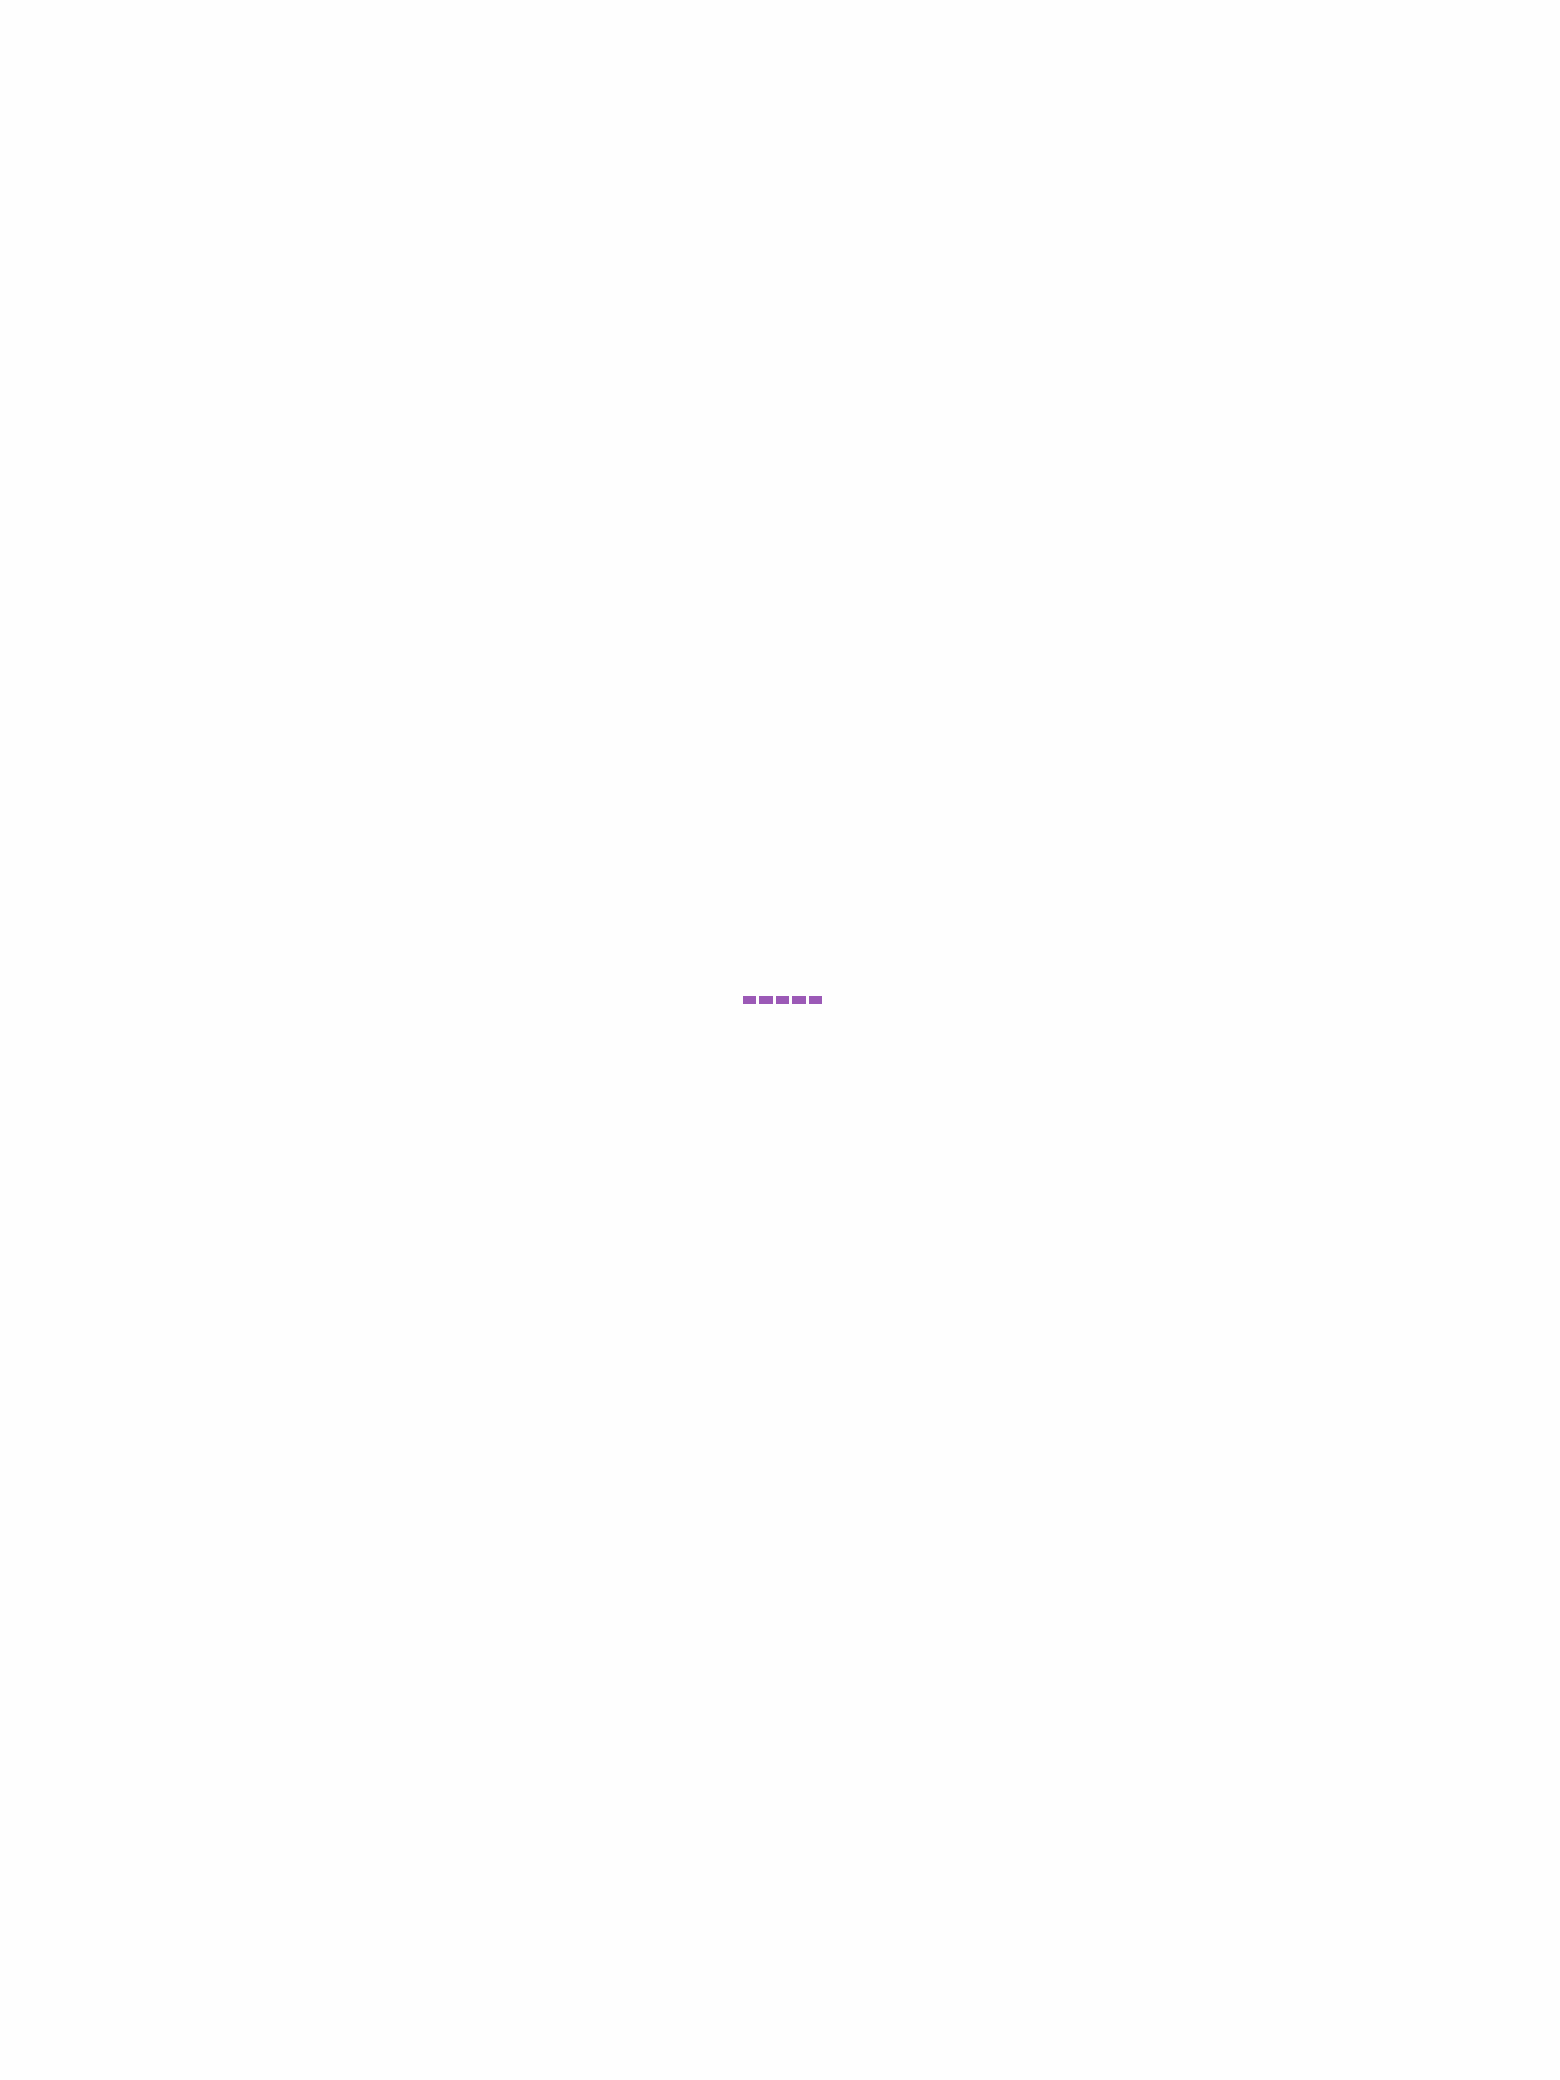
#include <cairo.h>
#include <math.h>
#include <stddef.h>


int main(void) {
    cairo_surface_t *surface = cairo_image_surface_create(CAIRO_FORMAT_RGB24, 1560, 2080);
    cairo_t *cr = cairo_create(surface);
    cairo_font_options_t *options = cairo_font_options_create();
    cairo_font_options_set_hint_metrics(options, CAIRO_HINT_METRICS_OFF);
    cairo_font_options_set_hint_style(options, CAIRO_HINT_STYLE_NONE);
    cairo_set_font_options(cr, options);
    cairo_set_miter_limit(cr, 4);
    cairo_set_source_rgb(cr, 0.996, 0.996, 0.996);
    cairo_paint(cr);
    cairo_set_source_rgb(cr, 0.608, 0.349, 0.714);
    cairo_rectangle(cr, 743, 996, 13, 8);
    cairo_fill(cr);
    cairo_rectangle(cr, 759, 996, 14, 8);
    cairo_fill(cr);
    cairo_rectangle(cr, 776, 996, 13, 8);
    cairo_fill(cr);
    cairo_rectangle(cr, 792, 996, 14, 8);
    cairo_fill(cr);
    cairo_rectangle(cr, 809, 996, 13, 8);
    cairo_fill(cr);
    cairo_surface_write_to_png(surface, "page.png");
    cairo_font_options_destroy(options);
    cairo_destroy(cr);
    cairo_surface_destroy(surface);
    return 0;
}
